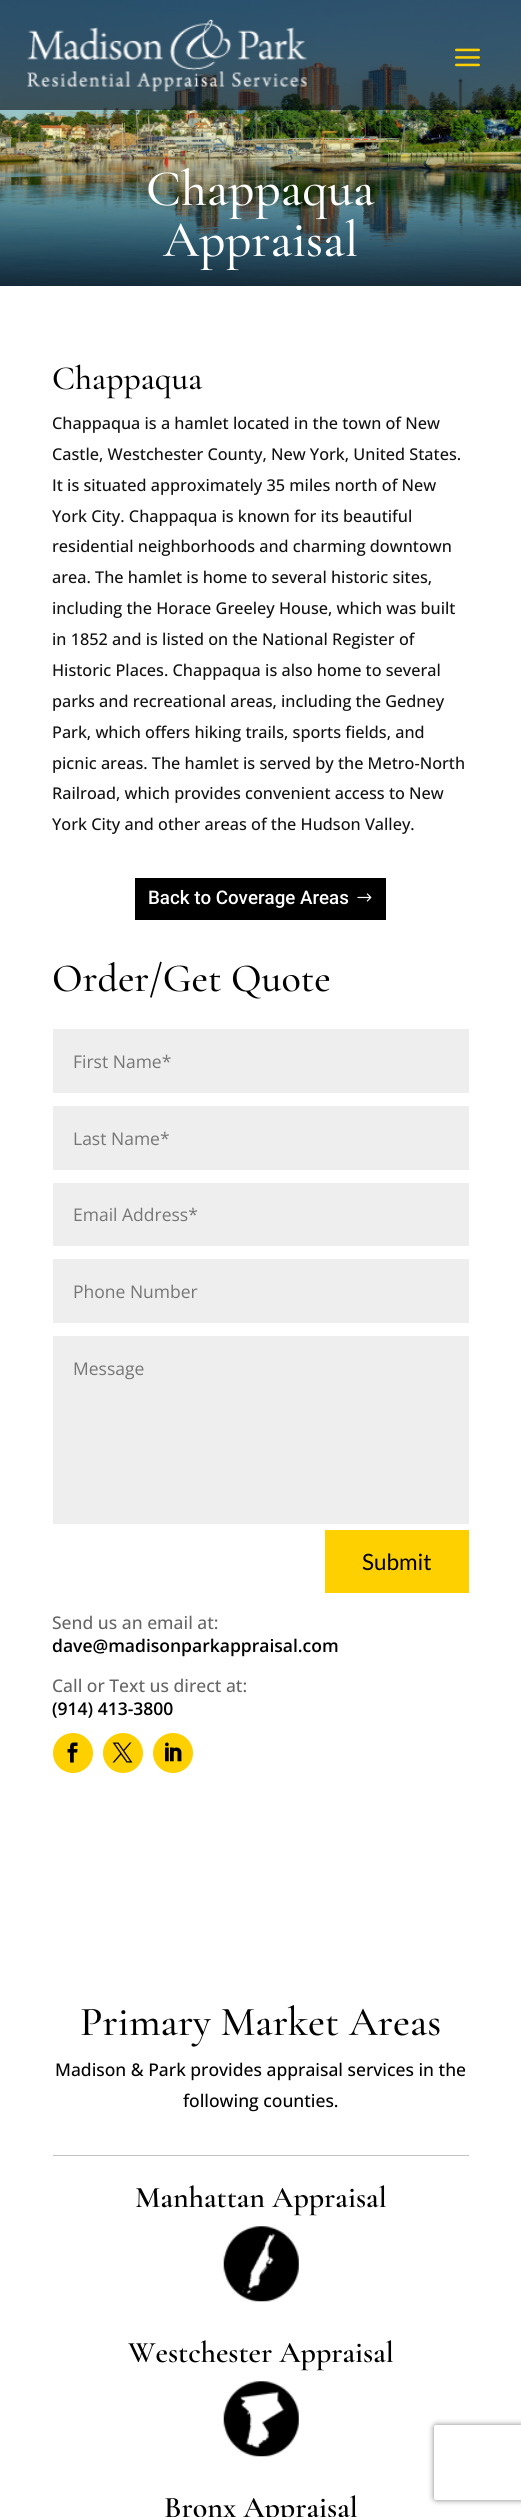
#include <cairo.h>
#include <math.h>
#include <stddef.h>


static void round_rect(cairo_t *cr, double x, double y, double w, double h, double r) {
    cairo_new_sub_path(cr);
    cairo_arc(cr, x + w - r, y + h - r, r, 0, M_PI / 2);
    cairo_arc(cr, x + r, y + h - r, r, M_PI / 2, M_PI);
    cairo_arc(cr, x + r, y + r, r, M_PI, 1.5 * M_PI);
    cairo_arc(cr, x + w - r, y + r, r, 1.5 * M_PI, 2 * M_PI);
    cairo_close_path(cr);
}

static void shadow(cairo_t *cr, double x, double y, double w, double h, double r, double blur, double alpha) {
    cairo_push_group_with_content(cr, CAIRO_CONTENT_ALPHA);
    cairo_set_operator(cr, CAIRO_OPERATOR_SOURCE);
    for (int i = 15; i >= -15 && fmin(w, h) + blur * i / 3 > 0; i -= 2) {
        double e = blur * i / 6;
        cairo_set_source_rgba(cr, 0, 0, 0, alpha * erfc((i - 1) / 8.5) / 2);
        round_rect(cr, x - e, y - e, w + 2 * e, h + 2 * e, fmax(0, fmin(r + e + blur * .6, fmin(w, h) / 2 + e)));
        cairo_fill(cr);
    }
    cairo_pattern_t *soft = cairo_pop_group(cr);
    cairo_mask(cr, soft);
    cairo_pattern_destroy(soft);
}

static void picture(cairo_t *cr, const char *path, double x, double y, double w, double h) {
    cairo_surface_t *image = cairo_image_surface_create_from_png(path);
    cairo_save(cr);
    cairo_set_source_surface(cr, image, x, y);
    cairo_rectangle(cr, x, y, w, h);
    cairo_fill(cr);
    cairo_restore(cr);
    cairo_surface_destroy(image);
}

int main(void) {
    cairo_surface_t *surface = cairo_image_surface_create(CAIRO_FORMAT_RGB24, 521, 2517);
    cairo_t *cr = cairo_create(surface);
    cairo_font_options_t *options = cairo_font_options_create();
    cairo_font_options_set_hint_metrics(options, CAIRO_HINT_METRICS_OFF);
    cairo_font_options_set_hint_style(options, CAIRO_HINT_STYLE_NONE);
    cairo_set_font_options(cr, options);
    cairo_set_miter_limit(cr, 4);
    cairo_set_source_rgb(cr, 1, 1, 1);
    cairo_paint(cr);
    picture(cr, "img3.png", 0, 0, 521, 286);
    cairo_set_source_rgba(cr, 0, 0.016, 0.047, 0.6);
    cairo_rectangle(cr, 0, 0, 521, 110);
    cairo_fill(cr);
    picture(cr, "img1.png", 27, 19, 280, 73);
    picture(cr, "img2.png", 455, 48, 25, 19);
    cairo_select_font_face(cr, "Cormorant Garamond Medium", CAIRO_FONT_SLANT_NORMAL, CAIRO_FONT_WEIGHT_NORMAL);
    cairo_set_font_size(cr, 51.25);
    cairo_set_source_rgb(cr, 1, 1, 1);
    cairo_move_to(cr, 146, 205);
    cairo_show_text(cr, "Chappaqua");
    cairo_move_to(cr, 163, 256);
    cairo_show_text(cr, "Appraisal");
    cairo_set_font_size(cr, 33.75);
    cairo_set_source_rgb(cr, 0, 0, 0);
    cairo_move_to(cr, 52, 389);
    cairo_show_text(cr, "Chappaqua");
    cairo_select_font_face(cr, "Open Sans Medium", CAIRO_FONT_SLANT_NORMAL, CAIRO_FONT_WEIGHT_NORMAL);
    cairo_set_font_size(cr, 16.25);
    cairo_set_source_rgb(cr, 0.067, 0.067, 0.067);
    cairo_move_to(cr, 52, 429);
    cairo_show_text(cr, "Chappaqua is a hamlet located in the town of New");
    cairo_move_to(cr, 52, 460);
    cairo_show_text(cr, "Castle, Westchester County, New York, United States.");
    cairo_move_to(cr, 52, 491);
    cairo_show_text(cr, "It is situated approximately 35 miles north of New");
    cairo_move_to(cr, 52, 522);
    cairo_show_text(cr, "York City. Chappaqua is known for its beautiful");
    cairo_move_to(cr, 52, 552);
    cairo_show_text(cr, "residential neighborhoods and charming downtown");
    cairo_move_to(cr, 52, 583);
    cairo_show_text(cr, "area. The hamlet is home to several historic sites,");
    cairo_move_to(cr, 52, 614);
    cairo_show_text(cr, "including the Horace Greeley House, which was built");
    cairo_move_to(cr, 52, 645);
    cairo_show_text(cr, "in 1852 and is listed on the National Register of");
    cairo_move_to(cr, 52, 676);
    cairo_show_text(cr, "Historic Places. Chappaqua is also home to several");
    cairo_move_to(cr, 52, 707);
    cairo_show_text(cr, "parks and recreational areas, including the Gedney");
    cairo_move_to(cr, 52, 738);
    cairo_show_text(cr, "Park, which offers hiking trails, sports fields, and");
    cairo_move_to(cr, 52, 769);
    cairo_show_text(cr, "picnic areas. The hamlet is served by the Metro-North");
    cairo_move_to(cr, 52, 799);
    cairo_show_text(cr, "Railroad, which provides convenient access to New");
    cairo_move_to(cr, 52, 830);
    cairo_show_text(cr, "York City and other areas of the Hudson Valley.");
    cairo_set_source_rgb(cr, 0, 0, 0);
    cairo_rectangle(cr, 135, 878, 251, 42);
    cairo_fill(cr);
    cairo_select_font_face(cr, "Roboto Medium", CAIRO_FONT_SLANT_NORMAL, CAIRO_FONT_WEIGHT_NORMAL);
    cairo_set_font_size(cr, 18.75);
    cairo_set_source_rgb(cr, 1, 1, 1);
    cairo_move_to(cr, 148, 904);
    cairo_show_text(cr, "Back to Coverage Areas");
    picture(cr, "img4.png", 357, 893, 15, 9);
    cairo_select_font_face(cr, "Cormorant Garamond Medium", CAIRO_FONT_SLANT_NORMAL, CAIRO_FONT_WEIGHT_NORMAL);
    cairo_set_font_size(cr, 40);
    cairo_set_source_rgb(cr, 0, 0, 0);
    cairo_move_to(cr, 52, 991);
    cairo_show_text(cr, "Order/Get Quote");
    cairo_set_source_rgb(cr, 0.933, 0.933, 0.933);
    cairo_rectangle(cr, 53, 1029, 416, 64);
    cairo_fill(cr);
    cairo_select_font_face(cr, "Open Sans", CAIRO_FONT_SLANT_NORMAL, CAIRO_FONT_WEIGHT_NORMAL);
    cairo_set_font_size(cr, 17.5);
    cairo_set_source_rgb(cr, 0.459, 0.459, 0.459);
    cairo_move_to(cr, 73, 1068);
    cairo_show_text(cr, "First Name*");
    cairo_set_source_rgb(cr, 0.933, 0.933, 0.933);
    cairo_rectangle(cr, 53, 1106, 416, 64);
    cairo_fill(cr);
    cairo_set_source_rgb(cr, 0.459, 0.459, 0.459);
    cairo_move_to(cr, 73, 1145);
    cairo_show_text(cr, "Last Name*");
    cairo_set_source_rgb(cr, 0.933, 0.933, 0.933);
    cairo_rectangle(cr, 53, 1183, 416, 63);
    cairo_fill(cr);
    cairo_set_source_rgb(cr, 0.459, 0.459, 0.459);
    cairo_move_to(cr, 73, 1221);
    cairo_show_text(cr, "Email Address*");
    cairo_set_source_rgb(cr, 0.933, 0.933, 0.933);
    cairo_rectangle(cr, 53, 1259, 416, 64);
    cairo_fill(cr);
    cairo_set_source_rgb(cr, 0.459, 0.459, 0.459);
    cairo_move_to(cr, 73, 1298);
    cairo_show_text(cr, "Phone Number");
    cairo_set_source_rgb(cr, 0.933, 0.933, 0.933);
    cairo_rectangle(cr, 53, 1336, 416, 188);
    cairo_fill(cr);
    cairo_set_source_rgb(cr, 0.459, 0.459, 0.459);
    cairo_move_to(cr, 73, 1375);
    cairo_show_text(cr, "Message");
    cairo_set_source_rgb(cr, 0.996, 0.816, 0);
    cairo_rectangle(cr, 325, 1530, 144, 63);
    cairo_fill(cr);
    cairo_select_font_face(cr, "Lato", CAIRO_FONT_SLANT_NORMAL, CAIRO_FONT_WEIGHT_NORMAL);
    cairo_set_font_size(cr, 22.5);
    cairo_set_source_rgb(cr, 0, 0, 0);
    cairo_move_to(cr, 362, 1570);
    cairo_show_text(cr, "Submit");
    cairo_select_font_face(cr, "Open Sans Medium", CAIRO_FONT_SLANT_NORMAL, CAIRO_FONT_WEIGHT_NORMAL);
    cairo_set_font_size(cr, 17.5);
    cairo_set_source_rgb(cr, 0.4, 0.4, 0.4);
    cairo_move_to(cr, 52, 1629);
    cairo_show_text(cr, "Send us an email at:");
    cairo_select_font_face(cr, "Open Sans SemiBold", CAIRO_FONT_SLANT_NORMAL, CAIRO_FONT_WEIGHT_NORMAL);
    cairo_set_source_rgb(cr, 0, 0, 0);
    cairo_move_to(cr, 52, 1652);
    cairo_show_text(cr, "dave@madisonparkappraisal.com");
    cairo_select_font_face(cr, "Open Sans Medium", CAIRO_FONT_SLANT_NORMAL, CAIRO_FONT_WEIGHT_NORMAL);
    cairo_set_source_rgb(cr, 0.4, 0.4, 0.4);
    cairo_move_to(cr, 52, 1692);
    cairo_show_text(cr, "Call or Text us direct at:");
    cairo_select_font_face(cr, "Open Sans SemiBold", CAIRO_FONT_SLANT_NORMAL, CAIRO_FONT_WEIGHT_NORMAL);
    cairo_set_source_rgb(cr, 0, 0, 0);
    cairo_move_to(cr, 52, 1715);
    cairo_show_text(cr, "(914) 413-3800");
    cairo_set_source_rgb(cr, 0.996, 0.816, 0);
    cairo_new_path(cr);
    cairo_arc(cr, 73, 1753, 20, 0, 2 * M_PI);
    cairo_fill(cr);
    picture(cr, "img5.png", 67, 1742, 11, 21);
    cairo_arc(cr, 123, 1753, 20, 0, 2 * M_PI);
    cairo_fill(cr);
    picture(cr, "img6.png", 112, 1742, 21, 21);
    cairo_arc(cr, 173, 1753, 20, 0, 2 * M_PI);
    cairo_fill(cr);
    picture(cr, "img7.png", 165, 1742, 17, 20);
    cairo_select_font_face(cr, "Cormorant Garamond Medium", CAIRO_FONT_SLANT_NORMAL, CAIRO_FONT_WEIGHT_NORMAL);
    cairo_set_font_size(cr, 41.25);
    cairo_set_source_rgb(cr, 0, 0, 0);
    cairo_move_to(cr, 80, 2035);
    cairo_show_text(cr, "Primary Market Areas");
    cairo_select_font_face(cr, "Open Sans Medium", CAIRO_FONT_SLANT_NORMAL, CAIRO_FONT_WEIGHT_NORMAL);
    cairo_set_font_size(cr, 17.5);
    cairo_move_to(cr, 55, 2076);
    cairo_show_text(cr, "Madison & Park provides appraisal services in the");
    cairo_move_to(cr, 183, 2107);
    cairo_show_text(cr, "following counties.");
    cairo_set_source_rgb(cr, 0.761, 0.761, 0.761);
    cairo_rectangle(cr, 53, 2155, 416, 1);
    cairo_fill(cr);
    cairo_select_font_face(cr, "Cormorant Garamond SemiBold", CAIRO_FONT_SLANT_NORMAL, CAIRO_FONT_WEIGHT_NORMAL);
    cairo_set_font_size(cr, 30);
    cairo_set_source_rgb(cr, 0, 0, 0);
    cairo_move_to(cr, 135, 2207);
    cairo_show_text(cr, "Manhattan Appraisal");
    picture(cr, "img8.png", 223, 2226, 76, 76);
    cairo_move_to(cr, 128, 2362);
    cairo_show_text(cr, "Westchester Appraisal");
    picture(cr, "img9.png", 223, 2381, 76, 76);
    cairo_move_to(cr, 164, 2517);
    cairo_show_text(cr, "Bronx Appraisal");
    cairo_save(cr);
    cairo_set_fill_rule(cr, CAIRO_FILL_RULE_EVEN_ODD);
    cairo_new_path(cr);
    cairo_move_to(cr, 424, 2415);
    cairo_line_to(cr, 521, 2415);
    cairo_line_to(cr, 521, 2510);
    cairo_line_to(cr, 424, 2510);
    cairo_close_path(cr);
    cairo_move_to(cr, 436.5, 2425);
    cairo_line_to(cr, 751.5, 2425);
    cairo_curve_to(cr, 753, 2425, 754, 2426, 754, 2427.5);
    cairo_line_to(cr, 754, 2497.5);
    cairo_curve_to(cr, 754, 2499, 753, 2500, 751.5, 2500);
    cairo_line_to(cr, 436.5, 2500);
    cairo_curve_to(cr, 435, 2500, 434, 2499, 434, 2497.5);
    cairo_line_to(cr, 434, 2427.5);
    cairo_curve_to(cr, 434, 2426, 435, 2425, 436.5, 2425);
    cairo_close_path(cr);
    cairo_clip(cr);
    cairo_set_source_rgb(cr, 0.502, 0.502, 0.502);
    shadow(cr, 434, 2425, 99, 75, 2.5, 3, 1);
    cairo_restore(cr);
    cairo_surface_write_to_png(surface, "page.png");
    cairo_font_options_destroy(options);
    cairo_destroy(cr);
    cairo_surface_destroy(surface);
    return 0;
}
